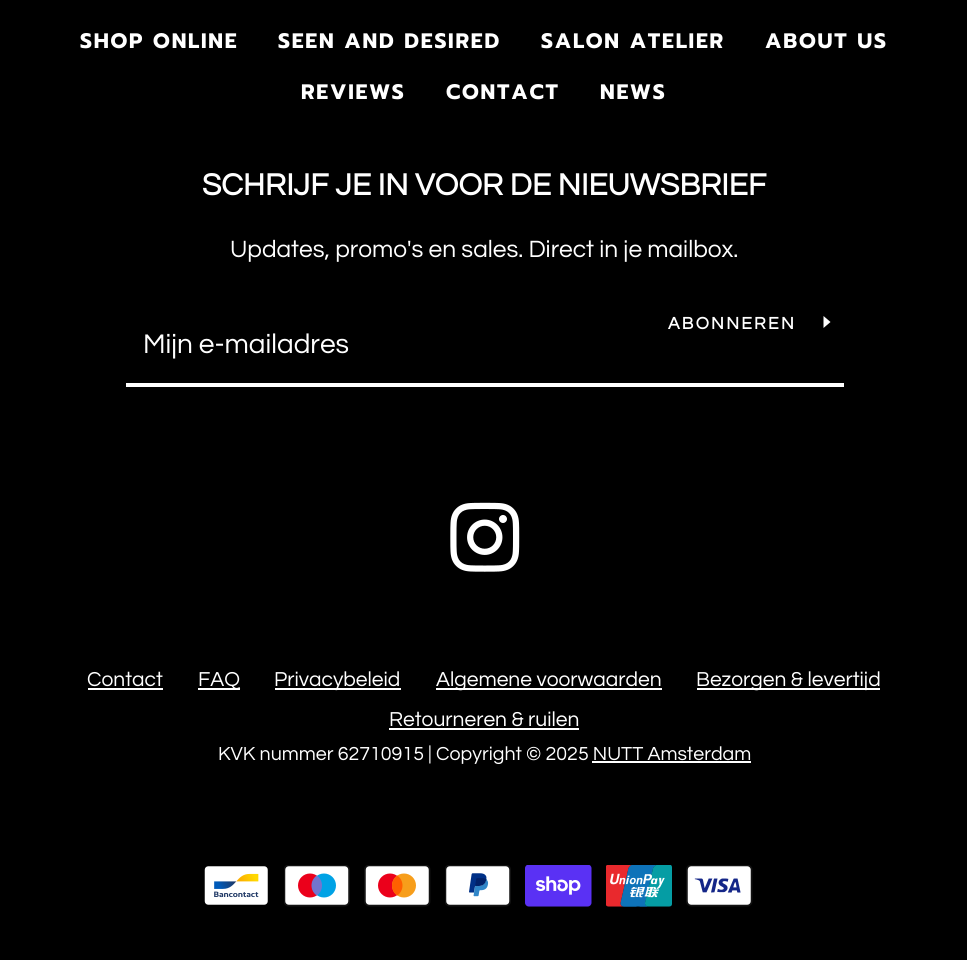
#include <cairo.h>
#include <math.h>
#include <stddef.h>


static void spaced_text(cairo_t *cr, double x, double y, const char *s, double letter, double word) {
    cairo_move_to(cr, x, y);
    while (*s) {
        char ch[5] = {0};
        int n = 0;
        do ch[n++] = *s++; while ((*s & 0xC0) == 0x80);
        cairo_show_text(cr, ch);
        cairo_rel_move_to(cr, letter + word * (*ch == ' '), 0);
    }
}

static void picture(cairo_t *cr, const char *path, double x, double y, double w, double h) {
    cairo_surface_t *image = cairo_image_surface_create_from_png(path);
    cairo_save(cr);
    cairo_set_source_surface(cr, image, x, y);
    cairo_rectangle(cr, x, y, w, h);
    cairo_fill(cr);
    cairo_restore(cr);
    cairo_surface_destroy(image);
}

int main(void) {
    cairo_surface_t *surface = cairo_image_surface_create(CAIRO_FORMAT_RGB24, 967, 960);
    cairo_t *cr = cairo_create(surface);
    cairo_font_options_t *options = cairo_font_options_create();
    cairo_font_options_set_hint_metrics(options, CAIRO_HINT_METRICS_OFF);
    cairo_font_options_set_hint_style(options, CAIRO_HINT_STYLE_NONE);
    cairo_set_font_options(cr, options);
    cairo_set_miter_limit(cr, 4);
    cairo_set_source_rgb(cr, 0, 0, 0);
    cairo_paint(cr);
    cairo_select_font_face(cr, "Prompt", CAIRO_FONT_SLANT_NORMAL, CAIRO_FONT_WEIGHT_BOLD);
    cairo_set_font_size(cr, 21);
    cairo_set_source_rgb(cr, 1, 1, 1);
    spaced_text(cr, 80, 48, "SHOP ONLINE", 1.75, 0);
    spaced_text(cr, 278, 48, "SEEN AND DESIRED", 1.75, 0);
    spaced_text(cr, 541, 48, "SALON ATELIER", 1.75, 0);
    spaced_text(cr, 765, 48, "ABOUT US", 1.75, 0);
    spaced_text(cr, 301, 99, "REVIEWS", 1.75, 0);
    spaced_text(cr, 446, 99, "CONTACT", 1.75, 0);
    spaced_text(cr, 600, 99, "NEWS", 1.75, 0);
    cairo_select_font_face(cr, "Questrial", CAIRO_FONT_SLANT_NORMAL, CAIRO_FONT_WEIGHT_BOLD);
    cairo_set_font_size(cr, 31.5);
    cairo_move_to(cr, 202, 195);
    cairo_show_text(cr, "SCHRIJF JE IN VOOR DE NIEUWSBRIEF");
    cairo_select_font_face(cr, "Questrial", CAIRO_FONT_SLANT_NORMAL, CAIRO_FONT_WEIGHT_NORMAL);
    cairo_set_font_size(cr, 24.5);
    cairo_move_to(cr, 230, 257);
    cairo_show_text(cr, "Updates, promo's en sales. Direct in je mailbox.");
    cairo_rectangle(cr, 126, 383, 718, 4);
    cairo_fill(cr);
    cairo_select_font_face(cr, "Questrial", CAIRO_FONT_SLANT_NORMAL, CAIRO_FONT_WEIGHT_BOLD);
    cairo_set_font_size(cr, 17.5);
    spaced_text(cr, 668, 329, "ABONNEREN", 2.25, 0);
    cairo_new_path(cr);
    cairo_move_to(cr, 830.5, 322);
    cairo_line_to(cr, 823.5, 328);
    cairo_line_to(cr, 823.5, 316);
    cairo_close_path(cr);
    cairo_fill(cr);
    cairo_select_font_face(cr, "Questrial", CAIRO_FONT_SLANT_NORMAL, CAIRO_FONT_WEIGHT_NORMAL);
    cairo_set_font_size(cr, 28);
    cairo_move_to(cr, 143, 353);
    cairo_show_text(cr, "Mijn e-mailadres");
    picture(cr, "img1.png", 450, 502, 70, 70);
    cairo_set_font_size(cr, 21);
    cairo_move_to(cr, 87, 686);
    cairo_show_text(cr, "Contact");
    cairo_rectangle(cr, 88, 688, 75, 2);
    cairo_fill(cr);
    cairo_rectangle(cr, 198, 688, 42, 2);
    cairo_fill(cr);
    cairo_move_to(cr, 198, 686);
    cairo_show_text(cr, "FAQ");
    cairo_rectangle(cr, 275, 688, 126, 2);
    cairo_fill(cr);
    cairo_move_to(cr, 274, 686);
    cairo_show_text(cr, "Privacybeleid");
    cairo_rectangle(cr, 436, 688, 226, 2);
    cairo_fill(cr);
    cairo_move_to(cr, 436, 686);
    cairo_show_text(cr, "Algemene voorwaarden");
    cairo_rectangle(cr, 697, 688, 183, 2);
    cairo_fill(cr);
    cairo_move_to(cr, 696, 686);
    cairo_show_text(cr, "Bezorgen & levertijd");
    cairo_move_to(cr, 389, 726);
    cairo_show_text(cr, "Retourneren & ruilen");
    cairo_rectangle(cr, 389, 728, 190, 2);
    cairo_fill(cr);
    cairo_set_font_size(cr, 19.6);
    cairo_move_to(cr, 218, 760);
    cairo_show_text(cr, "KVK nummer 62710915 | Copyright © 2025 NUTT Amsterdam");
    cairo_rectangle(cr, 592, 761, 159, 2);
    cairo_fill(cr);
    picture(cr, "img2.png", 204, 866, 64, 39);
    picture(cr, "img3.png", 284, 865, 66, 42);
    picture(cr, "img4.png", 364, 865, 67, 42);
    picture(cr, "img5.png", 445, 865, 66, 42);
    picture(cr, "img6.png", 525, 865, 67, 42);
    picture(cr, "img7.png", 606, 865, 66, 42);
    picture(cr, "img8.png", 686, 865, 67, 42);
    cairo_surface_write_to_png(surface, "page.png");
    cairo_font_options_destroy(options);
    cairo_destroy(cr);
    cairo_surface_destroy(surface);
    return 0;
}
